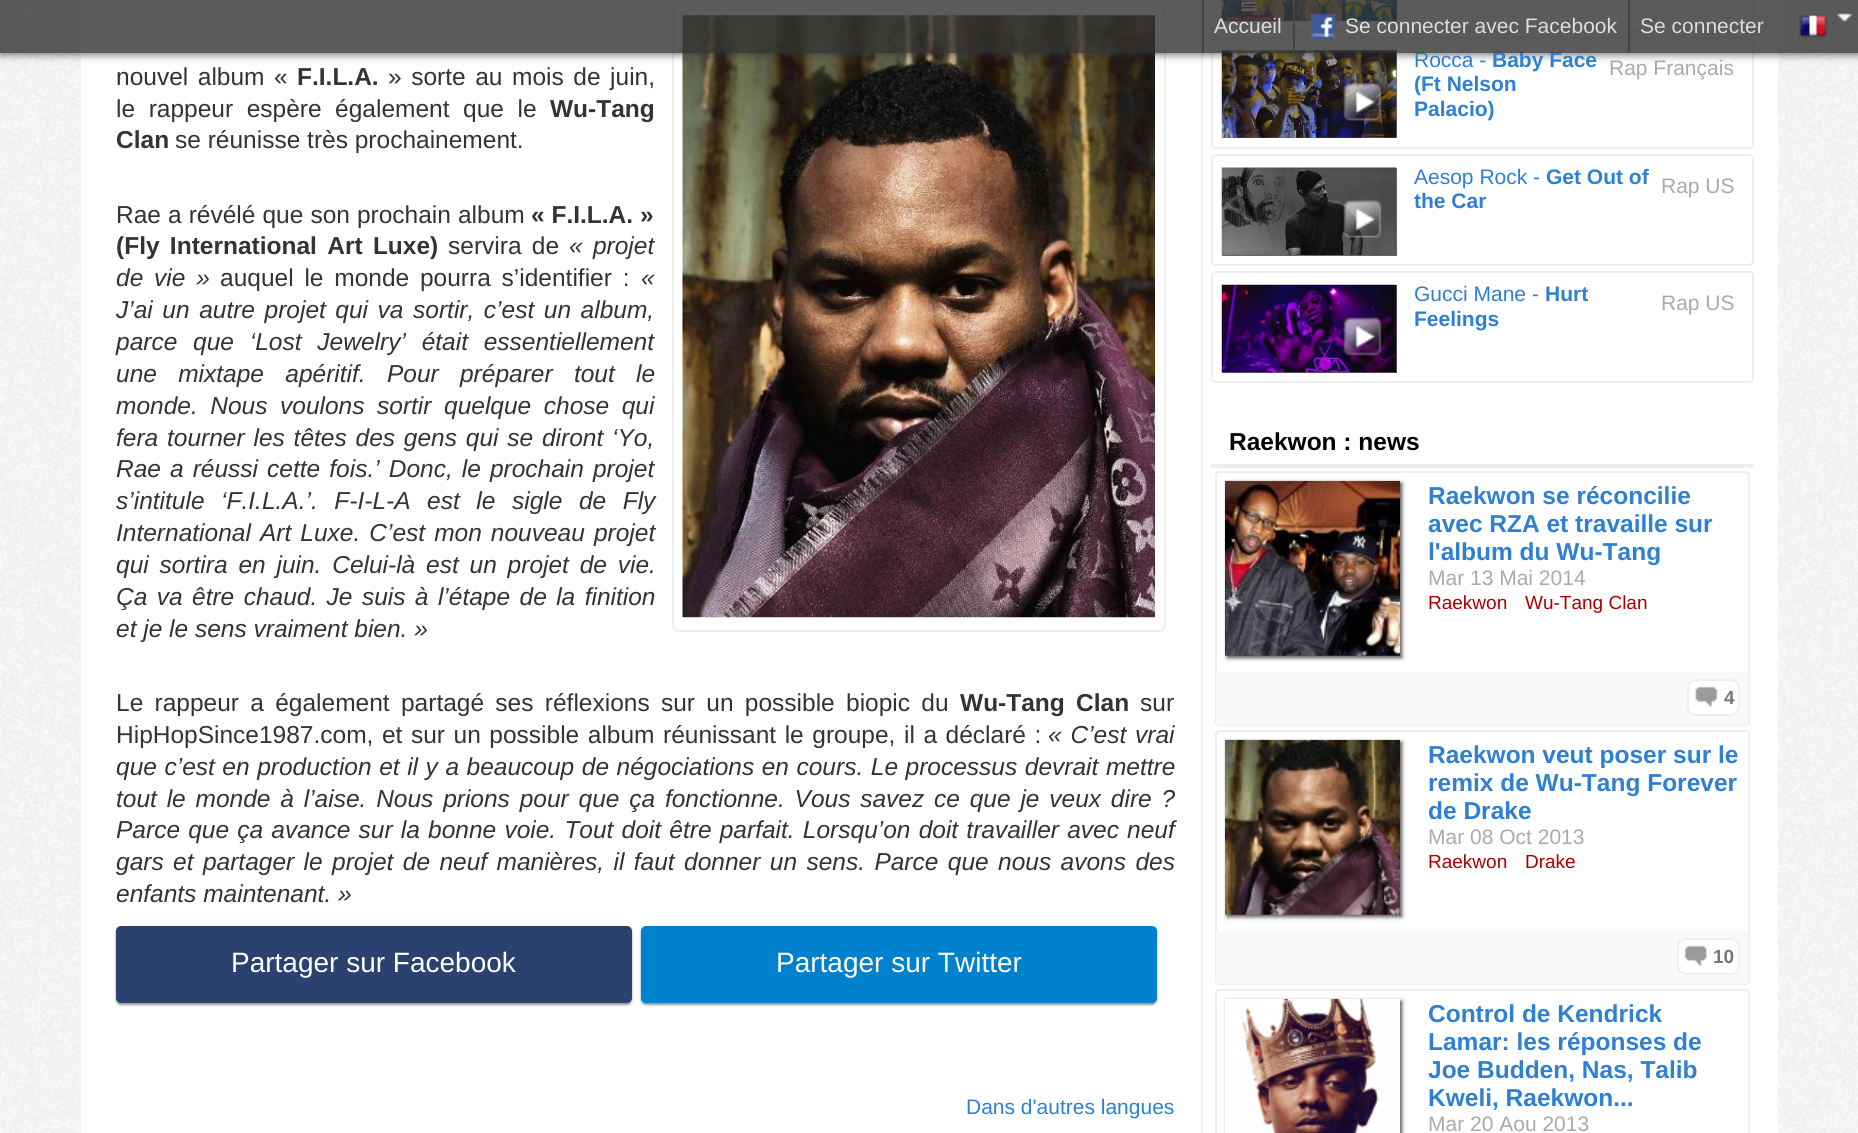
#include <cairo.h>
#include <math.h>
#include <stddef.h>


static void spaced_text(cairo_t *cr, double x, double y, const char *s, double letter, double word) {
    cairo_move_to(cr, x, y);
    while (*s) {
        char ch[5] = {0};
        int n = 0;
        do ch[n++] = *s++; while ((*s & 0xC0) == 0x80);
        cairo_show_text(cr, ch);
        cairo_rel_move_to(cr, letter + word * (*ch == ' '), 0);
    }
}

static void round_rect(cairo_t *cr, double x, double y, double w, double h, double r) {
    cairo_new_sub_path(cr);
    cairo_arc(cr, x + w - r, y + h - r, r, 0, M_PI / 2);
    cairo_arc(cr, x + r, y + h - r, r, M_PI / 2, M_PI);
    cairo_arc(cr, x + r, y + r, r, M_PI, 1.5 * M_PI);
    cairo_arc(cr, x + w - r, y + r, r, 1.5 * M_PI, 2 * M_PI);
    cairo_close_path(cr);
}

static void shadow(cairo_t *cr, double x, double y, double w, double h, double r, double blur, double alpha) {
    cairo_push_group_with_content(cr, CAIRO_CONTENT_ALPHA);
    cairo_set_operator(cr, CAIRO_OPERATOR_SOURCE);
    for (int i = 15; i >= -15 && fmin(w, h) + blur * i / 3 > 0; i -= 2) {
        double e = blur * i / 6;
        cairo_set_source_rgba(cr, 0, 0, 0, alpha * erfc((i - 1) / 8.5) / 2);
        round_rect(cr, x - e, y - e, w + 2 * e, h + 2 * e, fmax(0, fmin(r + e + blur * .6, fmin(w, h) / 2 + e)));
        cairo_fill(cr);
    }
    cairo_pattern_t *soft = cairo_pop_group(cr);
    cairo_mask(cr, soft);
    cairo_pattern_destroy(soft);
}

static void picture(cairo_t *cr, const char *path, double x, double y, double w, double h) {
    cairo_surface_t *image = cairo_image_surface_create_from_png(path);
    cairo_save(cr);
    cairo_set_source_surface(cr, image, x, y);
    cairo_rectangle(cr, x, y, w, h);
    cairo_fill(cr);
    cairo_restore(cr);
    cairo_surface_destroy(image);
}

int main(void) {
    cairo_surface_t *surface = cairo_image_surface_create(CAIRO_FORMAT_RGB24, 1858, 1133);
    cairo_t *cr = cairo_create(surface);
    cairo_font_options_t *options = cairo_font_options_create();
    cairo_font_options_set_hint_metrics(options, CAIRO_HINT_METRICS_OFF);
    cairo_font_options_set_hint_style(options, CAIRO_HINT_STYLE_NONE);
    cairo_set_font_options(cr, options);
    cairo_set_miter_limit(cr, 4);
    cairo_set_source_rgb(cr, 1, 1, 1);
    cairo_paint(cr);
    picture(cr, "img1.png", 0, 0, 1858, 1133);
    cairo_set_source_rgb(cr, 1, 1, 1);
    cairo_rectangle(cr, 81, 0, 1697, 1133);
    cairo_fill(cr);
    cairo_set_source_rgb(cr, 0.933, 0.933, 0.933);
    cairo_rectangle(cr, 1201, 0, 2, 1133);
    cairo_fill(cr);
    round_rect(cr, 673, 6, 492, 625, 6);
    cairo_stroke(cr);
    picture(cr, "img5.png", 682, 15, 473, 603);
    round_rect(cr, 1212, -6, 541, 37, 4);
    cairo_stroke(cr);
    cairo_set_source_rgb(cr, 0.4, 0.4, 0.4);
    cairo_rectangle(cr, 1222, 0, 175, 21);
    cairo_fill(cr);
    picture(cr, "img6.png", 1221, 0, 176, 21);
    picture(cr, "img7.png", 1343, 0, 38, 4);
    round_rect(cr, 1212, 38, 541, 110, 4);
    cairo_set_source_rgb(cr, 0.933, 0.933, 0.933);
    cairo_stroke(cr);
    cairo_set_source_rgb(cr, 0.4, 0.4, 0.4);
    cairo_rectangle(cr, 1222, 51, 175, 87);
    cairo_fill(cr);
    picture(cr, "img8.png", 1221, 50, 176, 88);
    cairo_save(cr);
    cairo_set_fill_rule(cr, CAIRO_FILL_RULE_EVEN_ODD);
    cairo_new_path(cr);
    cairo_move_to(cr, 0, 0);
    cairo_line_to(cr, 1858, 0);
    cairo_line_to(cr, 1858, 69);
    cairo_line_to(cr, 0, 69);
    cairo_close_path(cr);
    cairo_move_to(cr, 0, 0);
    cairo_line_to(cr, 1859, 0);
    cairo_line_to(cr, 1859, 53);
    cairo_line_to(cr, 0, 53);
    cairo_close_path(cr);
    cairo_clip(cr);
    cairo_set_source_rgb(cr, 0.2, 0.2, 0.2);
    shadow(cr, 0, 2, 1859, 52, 0, 4.5, 0.8);
    cairo_restore(cr);
    cairo_select_font_face(cr, "Liberation Sans", CAIRO_FONT_SLANT_NORMAL, CAIRO_FONT_WEIGHT_NORMAL);
    cairo_set_font_size(cr, 21);
    cairo_set_source_rgb(cr, 0.184, 0.502, 0.824);
    cairo_move_to(cr, 1414, 67);
    cairo_show_text(cr, "Rocca -");
    cairo_select_font_face(cr, "Liberation Sans", CAIRO_FONT_SLANT_NORMAL, CAIRO_FONT_WEIGHT_BOLD);
    cairo_move_to(cr, 1492, 67);
    cairo_show_text(cr, "Baby Face");
    cairo_set_source_rgba(cr, 0.2, 0.2, 0.2, 0.8);
    cairo_rectangle(cr, 0, 0, 1858, 53);
    cairo_fill(cr);
    cairo_set_source_rgb(cr, 0.267, 0.267, 0.267);
    cairo_rectangle(cr, 1202, 0, 2, 53);
    cairo_fill(cr);
    cairo_select_font_face(cr, "Liberation Sans", CAIRO_FONT_SLANT_NORMAL, CAIRO_FONT_WEIGHT_NORMAL);
    cairo_set_source_rgb(cr, 0.867, 0.867, 0.867);
    cairo_move_to(cr, 1214, 33);
    cairo_show_text(cr, "Accueil");
    cairo_set_source_rgb(cr, 0.267, 0.267, 0.267);
    cairo_rectangle(cr, 1293, 0, 2, 53);
    cairo_fill(cr);
    picture(cr, "img2.png", 1309, 13, 27, 26);
    cairo_set_source_rgb(cr, 0.867, 0.867, 0.867);
    cairo_move_to(cr, 1345, 33);
    cairo_show_text(cr, "Se connecter avec Facebook");
    cairo_set_source_rgb(cr, 0.267, 0.267, 0.267);
    cairo_rectangle(cr, 1628, 0, 2, 53);
    cairo_fill(cr);
    cairo_set_source_rgb(cr, 0.867, 0.867, 0.867);
    cairo_move_to(cr, 1640, 33);
    cairo_show_text(cr, "Se connecter");
    picture(cr, "img3.png", 1799, 14, 28, 24);
    picture(cr, "img4.png", 1836, 13, 17, 9);
    cairo_set_font_size(cr, 24.5);
    cairo_set_source_rgb(cr, 0.2, 0.2, 0.2);
    spaced_text(cr, 116, 85, "nouvel album «", 0, 2.75);
    cairo_select_font_face(cr, "Liberation Sans", CAIRO_FONT_SLANT_NORMAL, CAIRO_FONT_WEIGHT_BOLD);
    cairo_move_to(cr, 297, 85);
    cairo_show_text(cr, "F.I.L.A.");
    cairo_select_font_face(cr, "Liberation Sans", CAIRO_FONT_SLANT_NORMAL, CAIRO_FONT_WEIGHT_NORMAL);
    spaced_text(cr, 388, 85, "» sorte au mois de juin,", 0, 2.75);
    spaced_text(cr, 116, 117, "le rappeur espère également que le", 0, 6.75);
    cairo_select_font_face(cr, "Liberation Sans", CAIRO_FONT_SLANT_NORMAL, CAIRO_FONT_WEIGHT_BOLD);
    cairo_move_to(cr, 550, 117);
    cairo_show_text(cr, "Wu-Tang");
    cairo_move_to(cr, 116, 148);
    cairo_show_text(cr, "Clan");
    cairo_select_font_face(cr, "Liberation Sans", CAIRO_FONT_SLANT_NORMAL, CAIRO_FONT_WEIGHT_NORMAL);
    cairo_move_to(cr, 175, 148);
    cairo_show_text(cr, "se réunisse très prochainement.");
    spaced_text(cr, 116, 223, "Rae a révélé que son prochain album", 0, 0.25);
    cairo_select_font_face(cr, "Liberation Sans", CAIRO_FONT_SLANT_NORMAL, CAIRO_FONT_WEIGHT_BOLD);
    cairo_move_to(cr, 531, 223);
    cairo_show_text(cr, "« F.I.L.A. »");
    spaced_text(cr, 116, 254, "(Fly International Art Luxe)", 0, 3.5);
    cairo_select_font_face(cr, "Liberation Sans", CAIRO_FONT_SLANT_NORMAL, CAIRO_FONT_WEIGHT_NORMAL);
    spaced_text(cr, 448, 254, "servira de", 0, 3.5);
    cairo_select_font_face(cr, "Liberation Sans", CAIRO_FONT_SLANT_ITALIC, CAIRO_FONT_WEIGHT_NORMAL);
    spaced_text(cr, 569, 254, "« projet", 0, 3.5);
    spaced_text(cr, 116, 286, "de vie »", 0, 4);
    cairo_select_font_face(cr, "Liberation Sans", CAIRO_FONT_SLANT_NORMAL, CAIRO_FONT_WEIGHT_NORMAL);
    spaced_text(cr, 220, 286, "auquel le monde pourra s’identifier :", 0, 4);
    cairo_select_font_face(cr, "Liberation Sans", CAIRO_FONT_SLANT_ITALIC, CAIRO_FONT_WEIGHT_NORMAL);
    cairo_move_to(cr, 641, 286);
    cairo_show_text(cr, "«");
    spaced_text(cr, 116, 318, "J’ai un autre projet qui va sortir, c’est un album,", 0, 2.75);
    spaced_text(cr, 116, 350, "parce que ‘Lost Jewelry’ était essentiellement", 0, 9);
    spaced_text(cr, 116, 382, "une mixtape apéritif. Pour préparer tout le", 0, 14.5);
    spaced_text(cr, 116, 414, "monde. Nous voulons sortir quelque chose qui", 0, 5.75);
    spaced_text(cr, 116, 446, "fera tourner les têtes des gens qui se diront ‘Yo,", 0, 2);
    spaced_text(cr, 116, 477, "Rae a réussi cette fois.’ Donc, le prochain projet", 0, 2.25);
    spaced_text(cr, 116, 509, "s’intitule ‘F.I.L.A.’. F-I-L-A est le sigle de Fly", 0, 9.75);
    spaced_text(cr, 116, 541, "International Art Luxe. C’est mon nouveau projet", 0, 2.25);
    spaced_text(cr, 116, 573, "qui sortira en juin. Celui-là est un projet de vie.", 0, 4);
    spaced_text(cr, 116, 605, "Ça va être chaud. Je suis à l’étape de la finition", 0, 2.6);
    cairo_move_to(cr, 116, 637);
    cairo_show_text(cr, "et je le sens vraiment bien. »");
    cairo_select_font_face(cr, "Liberation Sans", CAIRO_FONT_SLANT_NORMAL, CAIRO_FONT_WEIGHT_NORMAL);
    spaced_text(cr, 116, 711, "Le rappeur a également partagé ses réflexions sur un possible biopic du", 0, 4.5);
    cairo_select_font_face(cr, "Liberation Sans", CAIRO_FONT_SLANT_NORMAL, CAIRO_FONT_WEIGHT_BOLD);
    spaced_text(cr, 960, 711, "Wu-Tang Clan", 0, 4.5);
    cairo_select_font_face(cr, "Liberation Sans", CAIRO_FONT_SLANT_NORMAL, CAIRO_FONT_WEIGHT_NORMAL);
    cairo_move_to(cr, 1140, 711);
    cairo_show_text(cr, "sur");
    spaced_text(cr, 116, 743, "HipHopSince1987.com, et sur un possible album réunissant le groupe, il a déclaré :", 0, 1.75);
    cairo_select_font_face(cr, "Liberation Sans", CAIRO_FONT_SLANT_ITALIC, CAIRO_FONT_WEIGHT_NORMAL);
    spaced_text(cr, 1048, 743, "« C’est vrai", 0, 2);
    spaced_text(cr, 116, 775, "que c’est en production et il y a beaucoup de négociations en cours. Le processus devrait mettre", 0, 0.75);
    spaced_text(cr, 116, 807, "tout le monde à l’aise. Nous prions pour que ça fonctionne. Vous savez ce que je veux dire ?", 0, 3);
    spaced_text(cr, 116, 838, "Parce que ça avance sur la bonne voie. Tout doit être parfait. Lorsqu’on doit travailler avec neuf", 0, 1.4);
    spaced_text(cr, 116, 870, "gars et partager le projet de neuf manières, il faut donner un sens. Parce que nous avons des", 0, 2.6);
    cairo_move_to(cr, 116, 902);
    cairo_show_text(cr, "enfants maintenant. »");
    cairo_set_source_rgb(cr, 0.6, 0.6, 0.6);
    shadow(cr, 116, 928, 516, 77, 5, 1, 1);
    cairo_set_source_rgb(cr, 0.169, 0.255, 0.439);
    round_rect(cr, 117, 927, 514, 75, 4);
    cairo_fill_preserve(cr);
    cairo_stroke(cr);
    cairo_select_font_face(cr, "Liberation Sans", CAIRO_FONT_SLANT_NORMAL, CAIRO_FONT_WEIGHT_NORMAL);
    cairo_set_font_size(cr, 28);
    cairo_set_source_rgb(cr, 1, 1, 1);
    cairo_move_to(cr, 231, 972);
    cairo_show_text(cr, "Partager sur Facebook");
    cairo_set_source_rgb(cr, 0.6, 0.6, 0.6);
    shadow(cr, 641, 928, 516, 77, 5, 1, 1);
    cairo_set_source_rgb(cr, 0, 0.506, 0.808);
    round_rect(cr, 642, 927, 514, 75, 4);
    cairo_fill_preserve(cr);
    cairo_stroke(cr);
    cairo_set_source_rgb(cr, 1, 1, 1);
    cairo_move_to(cr, 776, 972);
    cairo_show_text(cr, "Partager sur Twitter");
    cairo_set_font_size(cr, 21);
    cairo_set_source_rgb(cr, 0.184, 0.502, 0.824);
    cairo_move_to(cr, 966, 1114);
    cairo_show_text(cr, "Dans d'autres langues");
    picture(cr, "img9.png", 1343, 83, 39, 38);
    cairo_select_font_face(cr, "Liberation Sans", CAIRO_FONT_SLANT_NORMAL, CAIRO_FONT_WEIGHT_BOLD);
    cairo_move_to(cr, 1414, 91);
    cairo_show_text(cr, "(Ft Nelson");
    cairo_move_to(cr, 1414, 116);
    cairo_show_text(cr, "Palacio)");
    cairo_select_font_face(cr, "Liberation Sans", CAIRO_FONT_SLANT_NORMAL, CAIRO_FONT_WEIGHT_NORMAL);
    cairo_set_source_rgb(cr, 0.667, 0.667, 0.667);
    cairo_move_to(cr, 1609, 75);
    cairo_show_text(cr, "Rap Français");
    round_rect(cr, 1212, 155, 541, 110, 4);
    cairo_set_source_rgb(cr, 0.933, 0.933, 0.933);
    cairo_stroke(cr);
    cairo_set_source_rgb(cr, 0.4, 0.4, 0.4);
    cairo_rectangle(cr, 1222, 168, 175, 88);
    cairo_fill(cr);
    picture(cr, "img10.png", 1221, 167, 176, 88);
    picture(cr, "img11.png", 1343, 200, 39, 38);
    cairo_set_source_rgb(cr, 0.184, 0.502, 0.824);
    cairo_move_to(cr, 1414, 184);
    cairo_show_text(cr, "Aesop Rock -");
    cairo_select_font_face(cr, "Liberation Sans", CAIRO_FONT_SLANT_NORMAL, CAIRO_FONT_WEIGHT_BOLD);
    cairo_move_to(cr, 1546, 184);
    cairo_show_text(cr, "Get Out of");
    cairo_move_to(cr, 1414, 208);
    cairo_show_text(cr, "the Car");
    cairo_select_font_face(cr, "Liberation Sans", CAIRO_FONT_SLANT_NORMAL, CAIRO_FONT_WEIGHT_NORMAL);
    cairo_set_source_rgb(cr, 0.667, 0.667, 0.667);
    cairo_move_to(cr, 1661, 193);
    cairo_show_text(cr, "Rap US");
    round_rect(cr, 1212, 272, 541, 110, 4);
    cairo_set_source_rgb(cr, 0.933, 0.933, 0.933);
    cairo_stroke(cr);
    cairo_set_source_rgb(cr, 0.4, 0.4, 0.4);
    cairo_rectangle(cr, 1222, 285, 175, 88);
    cairo_fill(cr);
    picture(cr, "img12.png", 1221, 284, 176, 89);
    picture(cr, "img13.png", 1343, 317, 39, 39);
    cairo_set_source_rgb(cr, 0.184, 0.502, 0.824);
    cairo_move_to(cr, 1414, 301);
    cairo_show_text(cr, "Gucci Mane -");
    cairo_select_font_face(cr, "Liberation Sans", CAIRO_FONT_SLANT_NORMAL, CAIRO_FONT_WEIGHT_BOLD);
    cairo_move_to(cr, 1545, 301);
    cairo_show_text(cr, "Hurt");
    cairo_move_to(cr, 1414, 326);
    cairo_show_text(cr, "Feelings");
    cairo_select_font_face(cr, "Liberation Sans", CAIRO_FONT_SLANT_NORMAL, CAIRO_FONT_WEIGHT_NORMAL);
    cairo_set_source_rgb(cr, 0.667, 0.667, 0.667);
    cairo_move_to(cr, 1661, 310);
    cairo_show_text(cr, "Rap US");
    cairo_set_source_rgb(cr, 0.933, 0.933, 0.933);
    cairo_rectangle(cr, 1211, 464, 543, 4);
    cairo_fill(cr);
    cairo_select_font_face(cr, "Liberation Sans", CAIRO_FONT_SLANT_NORMAL, CAIRO_FONT_WEIGHT_BOLD);
    cairo_set_font_size(cr, 24.5);
    cairo_set_source_rgb(cr, 0, 0, 0);
    cairo_move_to(cr, 1229, 450);
    cairo_show_text(cr, "Raekwon : news");
    round_rect(cr, 1216, 472, 533, 253, 3);
    cairo_set_source_rgb(cr, 0.933, 0.933, 0.933);
    cairo_stroke(cr);
    cairo_set_source_rgb(cr, 0.333, 0.333, 0.333);
    shadow(cr, 1227, 483, 175, 175, 0, 2, 1);
    picture(cr, "img14.png", 1225, 480, 175, 176);
    cairo_set_source_rgb(cr, 0.184, 0.502, 0.824);
    cairo_move_to(cr, 1428, 504);
    cairo_show_text(cr, "Raekwon se réconcilie");
    cairo_move_to(cr, 1428, 532);
    cairo_show_text(cr, "avec RZA et travaille sur");
    cairo_move_to(cr, 1428, 560);
    cairo_show_text(cr, "l'album du Wu-Tang");
    cairo_select_font_face(cr, "Liberation Sans", CAIRO_FONT_SLANT_NORMAL, CAIRO_FONT_WEIGHT_NORMAL);
    cairo_set_font_size(cr, 21);
    cairo_set_source_rgb(cr, 0.667, 0.667, 0.667);
    cairo_move_to(cr, 1428, 585);
    cairo_show_text(cr, "Mar 13 Mai 2014");
    cairo_set_font_size(cr, 19);
    cairo_set_source_rgb(cr, 0.667, 0, 0);
    cairo_move_to(cr, 1428, 609);
    cairo_show_text(cr, "Raekwon");
    cairo_move_to(cr, 1525, 609);
    cairo_show_text(cr, "Wu-Tang Clan");
    cairo_set_source_rgb(cr, 0.973, 0.973, 0.973);
    cairo_new_path(cr);
    cairo_move_to(cr, 1216, 672);
    cairo_line_to(cr, 1748, 672);
    cairo_line_to(cr, 1748, 723);
    cairo_curve_to(cr, 1748, 724, 1747, 725, 1746, 725);
    cairo_line_to(cr, 1218, 725);
    cairo_curve_to(cr, 1217, 725, 1216, 724, 1216, 723);
    cairo_close_path(cr);
    cairo_fill(cr);
    cairo_set_source_rgb(cr, 1, 1, 1);
    round_rect(cr, 1687, 679, 53, 37, 9);
    cairo_fill(cr);
    picture(cr, "img15.png", 1695, 686, 23, 21);
    round_rect(cr, 1688, 680, 51, 35, 8);
    cairo_set_source_rgb(cr, 0.933, 0.933, 0.933);
    cairo_stroke(cr);
    cairo_select_font_face(cr, "Liberation Sans", CAIRO_FONT_SLANT_NORMAL, CAIRO_FONT_WEIGHT_BOLD);
    cairo_set_source_rgb(cr, 0.467, 0.467, 0.467);
    cairo_move_to(cr, 1724, 704);
    cairo_show_text(cr, "4");
    round_rect(cr, 1216, 731, 533, 253, 3);
    cairo_set_source_rgb(cr, 0.933, 0.933, 0.933);
    cairo_stroke(cr);
    cairo_set_source_rgb(cr, 0.333, 0.333, 0.333);
    shadow(cr, 1227, 742, 175, 175, 0, 2, 1);
    picture(cr, "img16.png", 1225, 739, 175, 176);
    cairo_set_font_size(cr, 24.5);
    cairo_set_source_rgb(cr, 0.184, 0.502, 0.824);
    cairo_move_to(cr, 1428, 763);
    cairo_show_text(cr, "Raekwon veut poser sur le");
    cairo_move_to(cr, 1428, 791);
    cairo_show_text(cr, "remix de Wu-Tang Forever");
    cairo_move_to(cr, 1428, 819);
    cairo_show_text(cr, "de Drake");
    cairo_select_font_face(cr, "Liberation Sans", CAIRO_FONT_SLANT_NORMAL, CAIRO_FONT_WEIGHT_NORMAL);
    cairo_set_font_size(cr, 21);
    cairo_set_source_rgb(cr, 0.667, 0.667, 0.667);
    cairo_move_to(cr, 1428, 844);
    cairo_show_text(cr, "Mar 08 Oct 2013");
    cairo_set_font_size(cr, 19);
    cairo_set_source_rgb(cr, 0.667, 0, 0);
    cairo_move_to(cr, 1428, 868);
    cairo_show_text(cr, "Raekwon");
    cairo_move_to(cr, 1525, 868);
    cairo_show_text(cr, "Drake");
    cairo_set_source_rgb(cr, 0.973, 0.973, 0.973);
    cairo_new_path(cr);
    cairo_move_to(cr, 1216, 931);
    cairo_line_to(cr, 1748, 931);
    cairo_line_to(cr, 1748, 982);
    cairo_curve_to(cr, 1748, 983, 1747, 984, 1746, 984);
    cairo_line_to(cr, 1218, 984);
    cairo_curve_to(cr, 1217, 984, 1216, 983, 1216, 982);
    cairo_close_path(cr);
    cairo_fill(cr);
    cairo_set_source_rgb(cr, 1, 1, 1);
    round_rect(cr, 1677, 938, 63, 37, 9);
    cairo_fill(cr);
    picture(cr, "img17.png", 1684, 945, 23, 21);
    round_rect(cr, 1678, 939, 61, 35, 8);
    cairo_set_source_rgb(cr, 0.933, 0.933, 0.933);
    cairo_stroke(cr);
    cairo_select_font_face(cr, "Liberation Sans", CAIRO_FONT_SLANT_NORMAL, CAIRO_FONT_WEIGHT_BOLD);
    cairo_set_source_rgb(cr, 0.467, 0.467, 0.467);
    cairo_move_to(cr, 1713, 963);
    cairo_show_text(cr, "10");
    round_rect(cr, 1216, 990, 533, 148, 3);
    cairo_set_source_rgb(cr, 0.933, 0.933, 0.933);
    cairo_stroke(cr);
    cairo_save(cr);
    cairo_set_fill_rule(cr, CAIRO_FILL_RULE_EVEN_ODD);
    cairo_new_path(cr);
    cairo_move_to(cr, 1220, 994);
    cairo_line_to(cr, 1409, 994);
    cairo_line_to(cr, 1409, 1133);
    cairo_line_to(cr, 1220, 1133);
    cairo_close_path(cr);
    cairo_move_to(cr, 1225, 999);
    cairo_line_to(cr, 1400, 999);
    cairo_line_to(cr, 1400, 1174);
    cairo_line_to(cr, 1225, 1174);
    cairo_close_path(cr);
    cairo_clip(cr);
    cairo_set_source_rgb(cr, 0.333, 0.333, 0.333);
    shadow(cr, 1227, 1001, 175, 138, 0, 2, 1);
    cairo_restore(cr);
    picture(cr, "img18.png", 1227, 998, 173, 135);
    cairo_set_font_size(cr, 24.5);
    cairo_set_source_rgb(cr, 0.184, 0.502, 0.824);
    cairo_move_to(cr, 1428, 1022);
    cairo_show_text(cr, "Control de Kendrick");
    cairo_move_to(cr, 1428, 1050);
    cairo_show_text(cr, "Lamar: les réponses de");
    cairo_move_to(cr, 1428, 1078);
    cairo_show_text(cr, "Joe Budden, Nas, Talib");
    cairo_move_to(cr, 1428, 1106);
    cairo_show_text(cr, "Kweli, Raekwon...");
    cairo_select_font_face(cr, "Liberation Sans", CAIRO_FONT_SLANT_NORMAL, CAIRO_FONT_WEIGHT_NORMAL);
    cairo_set_font_size(cr, 21);
    cairo_set_source_rgb(cr, 0.667, 0.667, 0.667);
    cairo_move_to(cr, 1428, 1131);
    cairo_show_text(cr, "Mar 20 Aou 2013");
    cairo_surface_write_to_png(surface, "page.png");
    cairo_font_options_destroy(options);
    cairo_destroy(cr);
    cairo_surface_destroy(surface);
    return 0;
}
